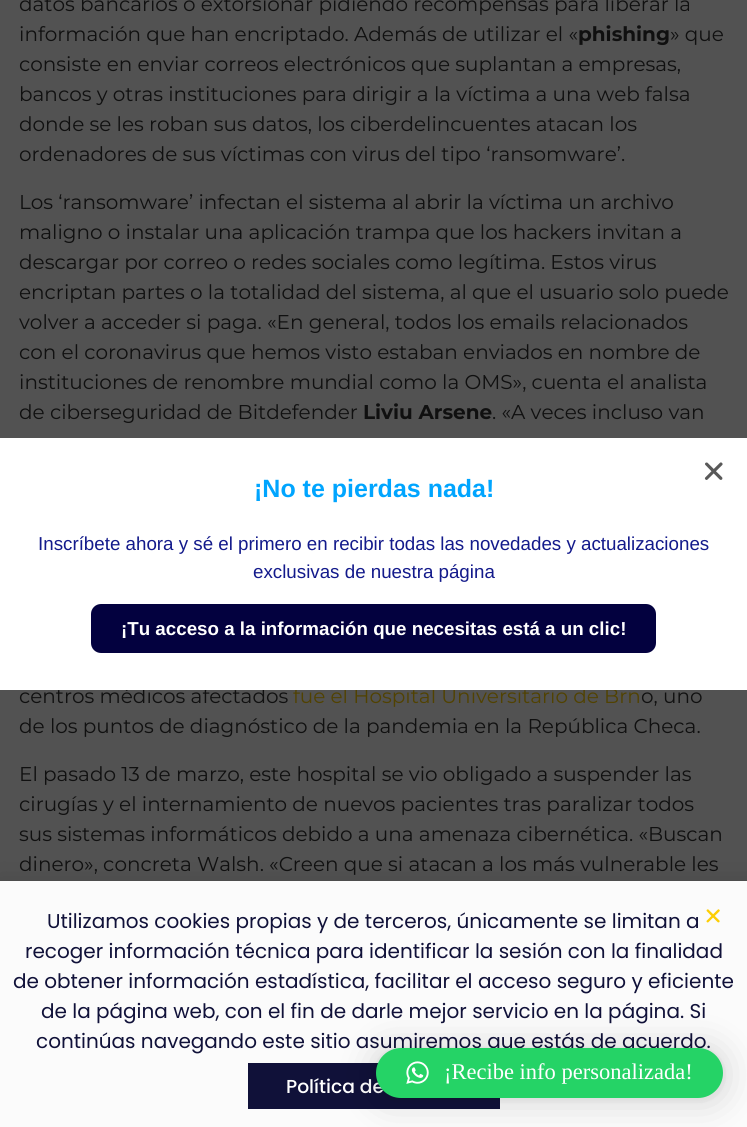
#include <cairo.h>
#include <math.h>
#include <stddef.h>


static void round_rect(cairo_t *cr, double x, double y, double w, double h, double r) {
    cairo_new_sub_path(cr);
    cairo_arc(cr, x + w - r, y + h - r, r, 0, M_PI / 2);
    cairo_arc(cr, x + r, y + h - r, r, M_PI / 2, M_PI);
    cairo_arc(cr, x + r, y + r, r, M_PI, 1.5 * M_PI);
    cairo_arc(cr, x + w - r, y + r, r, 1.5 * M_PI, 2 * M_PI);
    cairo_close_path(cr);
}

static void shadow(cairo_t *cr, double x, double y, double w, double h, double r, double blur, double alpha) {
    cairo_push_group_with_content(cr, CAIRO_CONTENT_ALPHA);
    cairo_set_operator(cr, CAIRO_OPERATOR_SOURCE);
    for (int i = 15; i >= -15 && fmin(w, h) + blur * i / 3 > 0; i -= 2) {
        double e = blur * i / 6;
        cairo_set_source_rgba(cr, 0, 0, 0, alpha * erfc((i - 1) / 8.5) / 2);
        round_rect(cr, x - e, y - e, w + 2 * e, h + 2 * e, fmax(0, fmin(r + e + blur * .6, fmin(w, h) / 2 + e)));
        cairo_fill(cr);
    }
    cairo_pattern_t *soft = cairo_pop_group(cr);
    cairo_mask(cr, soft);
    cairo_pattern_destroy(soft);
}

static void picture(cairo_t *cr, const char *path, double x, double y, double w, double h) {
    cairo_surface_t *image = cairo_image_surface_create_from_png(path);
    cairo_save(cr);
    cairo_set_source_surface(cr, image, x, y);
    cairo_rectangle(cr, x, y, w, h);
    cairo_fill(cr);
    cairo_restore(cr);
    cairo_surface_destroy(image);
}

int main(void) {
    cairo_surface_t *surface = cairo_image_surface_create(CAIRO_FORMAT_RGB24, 747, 1127);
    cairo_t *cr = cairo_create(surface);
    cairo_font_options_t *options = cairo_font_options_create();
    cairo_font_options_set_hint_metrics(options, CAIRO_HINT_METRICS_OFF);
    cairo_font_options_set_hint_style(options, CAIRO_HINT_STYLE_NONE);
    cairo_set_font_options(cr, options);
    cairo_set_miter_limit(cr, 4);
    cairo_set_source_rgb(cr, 0.322, 0.322, 0.322);
    cairo_paint(cr);
    cairo_select_font_face(cr, "Montserrat", CAIRO_FONT_SLANT_NORMAL, CAIRO_FONT_WEIGHT_NORMAL);
    cairo_set_font_size(cr, 20);
    cairo_set_source_rgb(cr, 0.063, 0.063, 0.063);
    cairo_move_to(cr, 19, 11);
    cairo_show_text(cr, "datos bancarios o extorsionar pidiendo recompensas para liberar la");
    cairo_move_to(cr, 19, 41);
    cairo_show_text(cr, "información que han encriptado. Además de utilizar el «");
    cairo_select_font_face(cr, "Montserrat", CAIRO_FONT_SLANT_NORMAL, CAIRO_FONT_WEIGHT_BOLD);
    cairo_move_to(cr, 578, 41);
    cairo_show_text(cr, "phishing");
    cairo_select_font_face(cr, "Montserrat", CAIRO_FONT_SLANT_NORMAL, CAIRO_FONT_WEIGHT_NORMAL);
    cairo_move_to(cr, 670, 41);
    cairo_show_text(cr, "» que");
    cairo_move_to(cr, 19, 71);
    cairo_show_text(cr, "consiste en enviar correos electrónicos que suplantan a empresas,");
    cairo_move_to(cr, 19, 101);
    cairo_show_text(cr, "bancos y otras instituciones para dirigir a la víctima a una web falsa");
    cairo_move_to(cr, 19, 131);
    cairo_show_text(cr, "donde se les roban sus datos, los ciberdelincuentes atacan los");
    cairo_move_to(cr, 19, 161);
    cairo_show_text(cr, "ordenadores de sus víctimas con virus del tipo ‘ransomware’.");
    cairo_move_to(cr, 19, 209);
    cairo_show_text(cr, "Los ‘ransomware’ infectan el sistema al abrir la víctima un archivo");
    cairo_move_to(cr, 19, 239);
    cairo_show_text(cr, "maligno o instalar una aplicación trampa que los hackers invitan a");
    cairo_move_to(cr, 19, 269);
    cairo_show_text(cr, "descargar por correo o redes sociales como legítima. Estos virus");
    cairo_move_to(cr, 19, 299);
    cairo_show_text(cr, "encriptan partes o la totalidad del sistema, al que el usuario solo puede");
    cairo_move_to(cr, 19, 329);
    cairo_show_text(cr, "volver a acceder si paga. «En general, todos los emails relacionados");
    cairo_move_to(cr, 19, 359);
    cairo_show_text(cr, "con el coronavirus que hemos visto estaban enviados en nombre de");
    cairo_move_to(cr, 19, 389);
    cairo_show_text(cr, "instituciones de renombre mundial como la OMS», cuenta el analista");
    cairo_move_to(cr, 19, 419);
    cairo_show_text(cr, "de ciberseguridad de Bitdefender");
    cairo_select_font_face(cr, "Montserrat", CAIRO_FONT_SLANT_NORMAL, CAIRO_FONT_WEIGHT_BOLD);
    cairo_move_to(cr, 363, 419);
    cairo_show_text(cr, "Liviu Arsene");
    cairo_select_font_face(cr, "Montserrat", CAIRO_FONT_SLANT_NORMAL, CAIRO_FONT_WEIGHT_NORMAL);
    cairo_move_to(cr, 492, 419);
    cairo_show_text(cr, ". «A veces incluso van");
    cairo_move_to(cr, 19, 703);
    cairo_show_text(cr, "centros médicos afectados");
    cairo_set_source_rgb(cr, 0.318, 0.259, 0.004);
    cairo_move_to(cr, 293, 703);
    cairo_show_text(cr, "fue el Hospital Universitario de Brn");
    cairo_set_source_rgb(cr, 0.063, 0.063, 0.063);
    cairo_move_to(cr, 641, 703);
    cairo_show_text(cr, "o, uno");
    cairo_move_to(cr, 19, 733);
    cairo_show_text(cr, "de los puntos de diagnóstico de la pandemia en la República Checa.");
    cairo_move_to(cr, 19, 781);
    cairo_show_text(cr, "El pasado 13 de marzo, este hospital se vio obligado a suspender las");
    cairo_move_to(cr, 19, 811);
    cairo_show_text(cr, "cirugías y el internamiento de nuevos pacientes tras paralizar todos");
    cairo_move_to(cr, 19, 841);
    cairo_show_text(cr, "sus sistemas informáticos debido a una amenaza cibernética. «Buscan");
    cairo_move_to(cr, 19, 871);
    cairo_show_text(cr, "dinero», concreta Walsh. «Creen que si atacan a los más vulnerable les");
    cairo_set_source_rgb(cr, 1, 1, 1);
    cairo_rectangle(cr, 0, 438, 747, 252);
    cairo_fill(cr);
    picture(cr, "img1.png", 704, 462, 19, 18);
    cairo_select_font_face(cr, "Liberation Sans", CAIRO_FONT_SLANT_NORMAL, CAIRO_FONT_WEIGHT_BOLD);
    cairo_set_font_size(cr, 25);
    cairo_set_source_rgb(cr, 0, 0.647, 1);
    cairo_move_to(cr, 254, 497);
    cairo_show_text(cr, "¡No te pierdas nada!");
    cairo_select_font_face(cr, "Liberation Sans", CAIRO_FONT_SLANT_NORMAL, CAIRO_FONT_WEIGHT_NORMAL);
    cairo_set_font_size(cr, 18.75);
    cairo_set_source_rgb(cr, 0.078, 0.102, 0.545);
    cairo_move_to(cr, 38, 550);
    cairo_show_text(cr, "Inscríbete ahora y sé el primero en recibir todas las novedades y actualizaciones");
    cairo_move_to(cr, 253, 578);
    cairo_show_text(cr, "exclusivas de nuestra página");
    cairo_set_source_rgb(cr, 0.012, 0.004, 0.247);
    round_rect(cr, 91, 604, 565, 49, 10);
    cairo_fill(cr);
    cairo_select_font_face(cr, "Liberation Sans", CAIRO_FONT_SLANT_NORMAL, CAIRO_FONT_WEIGHT_BOLD);
    cairo_set_source_rgb(cr, 1, 1, 1);
    cairo_move_to(cr, 121, 635);
    cairo_show_text(cr, "¡Tu acceso a la información que necesitas está a un clic!");
    cairo_set_source_rgb(cr, 0, 0, 0);
    shadow(cr, -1, 888, 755, 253, 0, 14.5, 0.2);
    cairo_set_source_rgb(cr, 0.984, 0.984, 0.984);
    cairo_rectangle(cr, 0, 881, 747, 246);
    cairo_fill(cr);
    picture(cr, "img2.png", 706, 909, 14, 14);
    cairo_select_font_face(cr, "Poppins", CAIRO_FONT_SLANT_NORMAL, CAIRO_FONT_WEIGHT_NORMAL);
    cairo_set_font_size(cr, 20);
    cairo_set_source_rgb(cr, 0.063, 0.067, 0.224);
    cairo_move_to(cr, 47, 928);
    cairo_show_text(cr, "Utilizamos cookies propias y de terceros, únicamente se limitan a");
    cairo_move_to(cr, 25, 958);
    cairo_show_text(cr, "recoger información técnica para identificar la sesión con la finalidad");
    cairo_move_to(cr, 13, 988);
    cairo_show_text(cr, "de obtener información estadística, facilitar el acceso seguro y eficiente");
    cairo_move_to(cr, 41, 1018);
    cairo_show_text(cr, "de la página web, con el fin de darle mejor servicio en la página. Si");
    cairo_move_to(cr, 36, 1048);
    cairo_show_text(cr, "continúas navegando este sitio asumiremos que estás de acuerdo.");
    cairo_rectangle(cr, 248, 1063, 252, 46);
    cairo_fill(cr);
    cairo_select_font_face(cr, "Poppins Medium", CAIRO_FONT_SLANT_NORMAL, CAIRO_FONT_WEIGHT_NORMAL);
    cairo_set_font_size(cr, 18.75);
    cairo_set_source_rgb(cr, 1, 1, 1);
    cairo_move_to(cr, 286, 1093);
    cairo_show_text(cr, "Política de");
    cairo_set_source_rgb(cr, 0, 0, 0);
    shadow(cr, 376, 1050, 347, 50, 25, 20, 0.16);
    shadow(cr, 376, 1049, 347, 50, 25, 4, 0.06);
    cairo_set_source_rgb(cr, 0.145, 0.827, 0.4);
    round_rect(cr, 376, 1048, 347, 50, 25);
    cairo_fill(cr);
    picture(cr, "img3.png", 406, 1061, 23, 23);
    cairo_select_font_face(cr, "Liberation Serif", CAIRO_FONT_SLANT_NORMAL, CAIRO_FONT_WEIGHT_NORMAL);
    cairo_set_font_size(cr, 22.5);
    cairo_set_source_rgb(cr, 1, 1, 1);
    cairo_move_to(cr, 444, 1079);
    cairo_show_text(cr, "¡Recibe info personalizada!");
    cairo_surface_write_to_png(surface, "page.png");
    cairo_font_options_destroy(options);
    cairo_destroy(cr);
    cairo_surface_destroy(surface);
    return 0;
}
